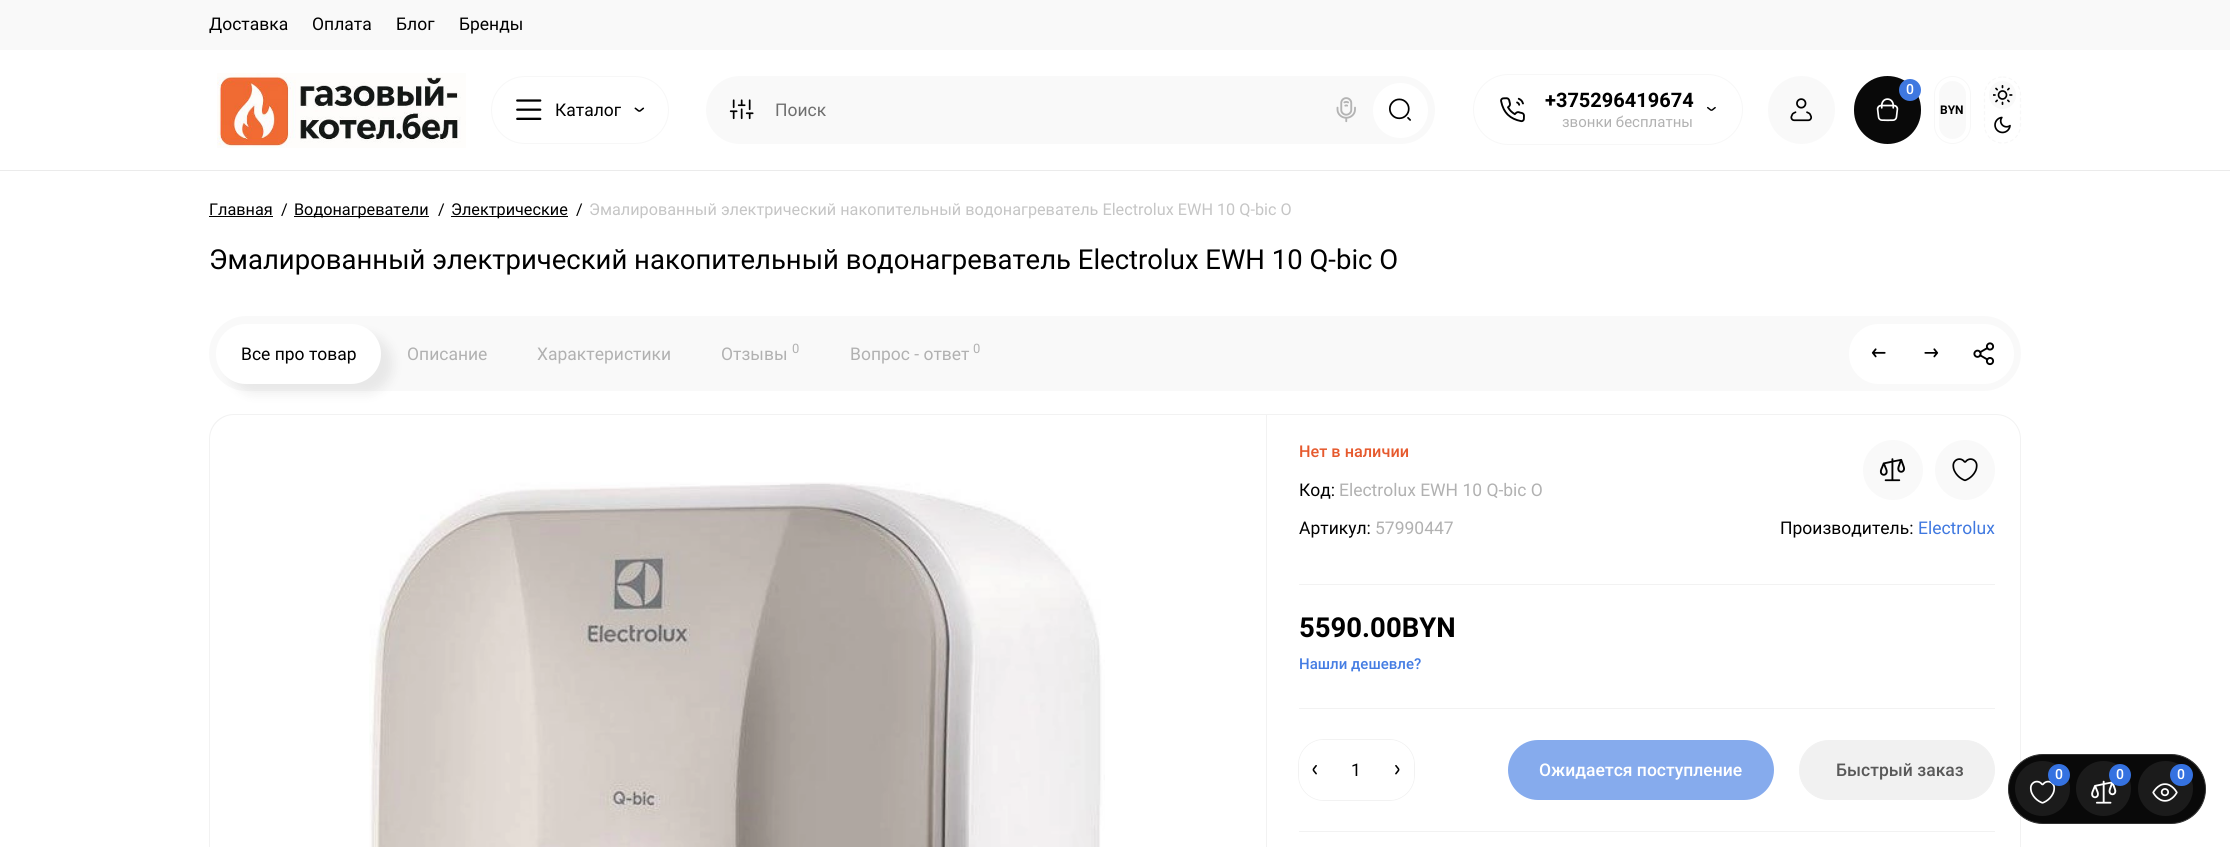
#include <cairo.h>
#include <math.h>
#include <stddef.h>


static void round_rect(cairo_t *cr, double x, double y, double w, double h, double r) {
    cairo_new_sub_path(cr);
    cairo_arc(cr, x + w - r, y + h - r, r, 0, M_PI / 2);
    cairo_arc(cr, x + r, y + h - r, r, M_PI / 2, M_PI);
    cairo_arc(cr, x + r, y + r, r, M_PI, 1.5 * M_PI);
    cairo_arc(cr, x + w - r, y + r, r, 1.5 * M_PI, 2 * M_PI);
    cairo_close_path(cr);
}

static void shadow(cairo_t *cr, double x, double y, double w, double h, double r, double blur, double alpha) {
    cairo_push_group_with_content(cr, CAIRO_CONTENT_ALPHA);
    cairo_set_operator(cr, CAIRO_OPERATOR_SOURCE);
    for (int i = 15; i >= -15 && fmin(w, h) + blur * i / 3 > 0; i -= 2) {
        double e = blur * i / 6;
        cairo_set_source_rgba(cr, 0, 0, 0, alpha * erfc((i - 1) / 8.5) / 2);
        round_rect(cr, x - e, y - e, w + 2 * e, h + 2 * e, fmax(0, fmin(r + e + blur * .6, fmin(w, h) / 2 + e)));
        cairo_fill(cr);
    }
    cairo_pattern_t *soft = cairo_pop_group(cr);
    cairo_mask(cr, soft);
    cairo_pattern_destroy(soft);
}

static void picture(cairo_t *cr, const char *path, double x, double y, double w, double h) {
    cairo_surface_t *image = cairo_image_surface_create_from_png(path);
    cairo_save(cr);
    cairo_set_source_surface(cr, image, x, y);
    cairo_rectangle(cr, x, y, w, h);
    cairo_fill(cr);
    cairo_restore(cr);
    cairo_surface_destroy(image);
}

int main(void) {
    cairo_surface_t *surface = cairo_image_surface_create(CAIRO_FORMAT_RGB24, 2230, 847);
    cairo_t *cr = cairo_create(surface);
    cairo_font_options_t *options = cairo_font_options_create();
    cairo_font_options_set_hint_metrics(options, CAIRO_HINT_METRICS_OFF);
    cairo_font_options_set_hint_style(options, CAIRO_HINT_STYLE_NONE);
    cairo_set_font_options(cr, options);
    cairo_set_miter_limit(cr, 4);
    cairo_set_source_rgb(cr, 1, 1, 1);
    cairo_paint(cr);
    cairo_set_source_rgb(cr, 0.976, 0.976, 0.976);
    cairo_rectangle(cr, 0, 0, 2230, 50);
    cairo_fill(cr);
    cairo_select_font_face(cr, "Roboto", CAIRO_FONT_SLANT_NORMAL, CAIRO_FONT_WEIGHT_NORMAL);
    cairo_set_font_size(cr, 17.5);
    cairo_set_source_rgb(cr, 0, 0, 0);
    cairo_move_to(cr, 209, 30);
    cairo_show_text(cr, "Доставка");
    cairo_move_to(cr, 312, 30);
    cairo_show_text(cr, "Оплата");
    cairo_move_to(cr, 396, 30);
    cairo_show_text(cr, "Блог");
    cairo_move_to(cr, 459, 30);
    cairo_show_text(cr, "Бренды");
    cairo_set_source_rgb(cr, 0.918, 0.918, 0.918);
    cairo_rectangle(cr, 0, 170, 2230, 1);
    cairo_fill(cr);
    picture(cr, "img1.png", 217, 73, 249, 75);
    round_rect(cr, 491.5, 76.5, 177, 67, 33.5);
    cairo_set_source_rgb(cr, 0.965, 0.965, 0.965);
    cairo_set_line_width(cr, 1);
    cairo_stroke(cr);
    picture(cr, "img2.png", 516, 99, 26, 21);
    cairo_set_source_rgb(cr, 0, 0, 0);
    cairo_move_to(cr, 555, 116);
    cairo_show_text(cr, "Каталог");
    picture(cr, "img3.png", 634, 107, 11, 5);
    cairo_set_source_rgb(cr, 0.976, 0.976, 0.976);
    round_rect(cr, 1768, 76, 67, 68, 33.5);
    cairo_fill(cr);
    picture(cr, "img4.png", 1790, 98, 23, 24);
    cairo_set_source_rgb(cr, 0.039, 0.039, 0.039);
    round_rect(cr, 1854, 76, 67, 68, 33.5);
    cairo_fill(cr);
    cairo_set_source_rgb(cr, 0.247, 0.471, 0.878);
    cairo_arc(cr, 1910, 90, 11, 0, 2 * M_PI);
    cairo_fill(cr);
    cairo_select_font_face(cr, "Roboto Medium", CAIRO_FONT_SLANT_NORMAL, CAIRO_FONT_WEIGHT_NORMAL);
    cairo_set_font_size(cr, 14);
    cairo_set_source_rgb(cr, 1, 1, 1);
    cairo_move_to(cr, 1906, 94);
    cairo_show_text(cr, "0");
    picture(cr, "img5.png", 1876, 98, 23, 24);
    cairo_new_path(cr);
    cairo_move_to(cr, 2002.5, 77);
    cairo_curve_to(cr, 2012.5, 77, 2020.5, 85, 2020.5, 95);
    cairo_line_to(cr, 2020.5, 125);
    cairo_curve_to(cr, 2020.5, 135, 2012.5, 143, 2002.5, 143);
    cairo_curve_to(cr, 1992.5, 143, 1984.5, 135, 1984.5, 125);
    cairo_line_to(cr, 1984.5, 95);
    cairo_curve_to(cr, 1984.5, 85, 1992.5, 77, 2002.5, 77);
    cairo_close_path(cr);
    cairo_set_source_rgb(cr, 0.965, 0.965, 0.965);
    cairo_set_line_width(cr, 1.2);
    cairo_set_dash(cr, (double[]){3.75, 2.5}, 2, 0);
    cairo_stroke(cr);
    cairo_set_source_rgb(cr, 0.976, 0.976, 0.976);
    round_rect(cr, 1989, 81, 27, 28, 13.5);
    cairo_fill(cr);
    picture(cr, "img6.png", 1993, 85, 20, 20);
    picture(cr, "img7.png", 1994, 116, 17, 18);
    cairo_new_path(cr);
    cairo_move_to(cr, 740, 76);
    cairo_line_to(cr, 769, 76);
    cairo_line_to(cr, 769, 144);
    cairo_line_to(cr, 740, 144);
    cairo_curve_to(cr, 721, 144, 706, 129, 706, 110);
    cairo_curve_to(cr, 706, 91, 721, 76, 740, 76);
    cairo_close_path(cr);
    cairo_fill(cr);
    picture(cr, "img8.png", 729, 99, 25, 21);
    cairo_rectangle(cr, 769, 76, 605, 68);
    cairo_fill(cr);
    picture(cr, "img9.png", 1336, 97, 20, 26);
    cairo_new_path(cr);
    cairo_move_to(cr, 1374, 76);
    cairo_line_to(cr, 1401, 76);
    cairo_curve_to(cr, 1420, 76, 1435, 91, 1435, 110);
    cairo_curve_to(cr, 1435, 129, 1420, 144, 1401, 144);
    cairo_line_to(cr, 1374, 144);
    cairo_close_path(cr);
    cairo_fill(cr);
    cairo_set_source_rgb(cr, 1, 1, 1);
    cairo_arc(cr, 1400.5, 110.5, 27.5, 0, 2 * M_PI);
    cairo_fill(cr);
    picture(cr, "img10.png", 1389, 98, 22, 23);
    cairo_select_font_face(cr, "Roboto", CAIRO_FONT_SLANT_NORMAL, CAIRO_FONT_WEIGHT_NORMAL);
    cairo_set_font_size(cr, 17.5);
    cairo_set_source_rgb(cr, 0.435, 0.435, 0.435);
    cairo_move_to(cr, 775, 116);
    cairo_show_text(cr, "Поиск");
    round_rect(cr, 1473.5, 74.5, 269, 70, 35);
    cairo_set_source_rgb(cr, 0.965, 0.965, 0.965);
    cairo_set_line_width(cr, 1);
    cairo_set_dash(cr, NULL, 0, 0);
    cairo_stroke(cr);
    picture(cr, "img11.png", 1500, 97, 25, 26);
    cairo_select_font_face(cr, "Roboto", CAIRO_FONT_SLANT_NORMAL, CAIRO_FONT_WEIGHT_BOLD);
    cairo_set_font_size(cr, 20);
    cairo_set_source_rgb(cr, 0, 0, 0);
    cairo_move_to(cr, 1545, 107);
    cairo_show_text(cr, "+375296419674");
    cairo_select_font_face(cr, "Roboto", CAIRO_FONT_SLANT_NORMAL, CAIRO_FONT_WEIGHT_NORMAL);
    cairo_set_font_size(cr, 15);
    cairo_set_source_rgb(cr, 0.694, 0.694, 0.694);
    cairo_move_to(cr, 1562, 127);
    cairo_show_text(cr, "звонки бесплатны");
    picture(cr, "img12.png", 1707, 106, 9, 5);
    round_rect(cr, 1934.5, 76.5, 36, 67, 18);
    cairo_set_source_rgb(cr, 0.965, 0.965, 0.965);
    cairo_stroke(cr);
    cairo_set_source_rgb(cr, 0.976, 0.976, 0.976);
    round_rect(cr, 1939, 81, 27, 58, 13.5);
    cairo_fill(cr);
    cairo_select_font_face(cr, "Roboto", CAIRO_FONT_SLANT_NORMAL, CAIRO_FONT_WEIGHT_BOLD);
    cairo_set_font_size(cr, 12);
    cairo_set_source_rgb(cr, 0, 0, 0);
    cairo_move_to(cr, 1940, 114);
    cairo_show_text(cr, "BYN");
    cairo_select_font_face(cr, "Roboto", CAIRO_FONT_SLANT_NORMAL, CAIRO_FONT_WEIGHT_NORMAL);
    cairo_set_font_size(cr, 16.25);
    cairo_move_to(cr, 209, 215);
    cairo_show_text(cr, "Главная");
    cairo_rectangle(cr, 209, 216, 64, 1);
    cairo_fill(cr);
    cairo_move_to(cr, 281, 215);
    cairo_show_text(cr, "/");
    cairo_rectangle(cr, 294, 216, 135, 1);
    cairo_fill(cr);
    cairo_move_to(cr, 294, 215);
    cairo_show_text(cr, "Водонагреватели");
    cairo_move_to(cr, 438, 215);
    cairo_show_text(cr, "/");
    cairo_rectangle(cr, 451, 216, 117, 1);
    cairo_fill(cr);
    cairo_move_to(cr, 451, 215);
    cairo_show_text(cr, "Электрические");
    cairo_move_to(cr, 576, 215);
    cairo_show_text(cr, "/");
    cairo_set_source_rgb(cr, 0.773, 0.773, 0.773);
    cairo_move_to(cr, 589, 215);
    cairo_show_text(cr, "Эмалированный электрический накопительный водонагреватель Electrolux EWH 10 Q-bic O");
    cairo_set_font_size(cr, 27.5);
    cairo_set_source_rgb(cr, 0, 0, 0);
    cairo_move_to(cr, 209, 269);
    cairo_show_text(cr, "Эмалированный электрический накопительный водонагреватель Electrolux EWH 10 Q-bic O");
    cairo_set_source_rgb(cr, 0.976, 0.976, 0.976);
    round_rect(cr, 209, 316, 1812, 75, 37.5);
    cairo_fill(cr);
    cairo_set_source_rgb(cr, 0, 0, 0);
    shadow(cr, 228, 334, 165, 60, 30, 6, 0.07);
    cairo_set_source_rgb(cr, 1, 1, 1);
    round_rect(cr, 216, 324, 165, 60, 30);
    cairo_fill(cr);
    cairo_set_font_size(cr, 17.5);
    cairo_set_source_rgb(cr, 0.694, 0.694, 0.694);
    cairo_move_to(cr, 721, 360);
    cairo_show_text(cr, "Отзывы");
    cairo_set_font_size(cr, 13);
    cairo_move_to(cr, 792, 353);
    cairo_show_text(cr, "0");
    cairo_set_font_size(cr, 17.5);
    cairo_move_to(cr, 850, 360);
    cairo_show_text(cr, "Вопрос - ответ");
    cairo_set_font_size(cr, 13);
    cairo_move_to(cr, 973, 353);
    cairo_show_text(cr, "0");
    cairo_set_font_size(cr, 17.5);
    cairo_set_source_rgb(cr, 0, 0, 0);
    cairo_move_to(cr, 241, 360);
    cairo_show_text(cr, "Все про товар");
    cairo_set_source_rgb(cr, 0.694, 0.694, 0.694);
    cairo_move_to(cr, 407, 360);
    cairo_show_text(cr, "Описание");
    cairo_move_to(cr, 537, 360);
    cairo_show_text(cr, "Характеристики");
    cairo_set_source_rgb(cr, 1, 1, 1);
    round_rect(cr, 1849, 324, 165, 60, 30);
    cairo_fill(cr);
    picture(cr, "img13.png", 1871, 348, 15, 10);
    picture(cr, "img14.png", 1924, 348, 15, 10);
    picture(cr, "img15.png", 1973, 342, 22, 24);
    cairo_set_source_rgb(cr, 0.949, 0.949, 0.949);
    cairo_set_fill_rule(cr, CAIRO_FILL_RULE_EVEN_ODD);
    cairo_new_path(cr);
    cairo_move_to(cr, 234, 414);
    cairo_line_to(cr, 1266, 414);
    cairo_line_to(cr, 1266, 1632);
    cairo_line_to(cr, 234, 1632);
    cairo_curve_to(cr, 220, 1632, 209, 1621, 209, 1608);
    cairo_line_to(cr, 209, 439);
    cairo_curve_to(cr, 209, 425, 220, 414, 234, 414);
    cairo_close_path(cr);
    cairo_move_to(cr, 234, 415);
    cairo_line_to(cr, 1266, 415);
    cairo_line_to(cr, 1266, 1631);
    cairo_line_to(cr, 234, 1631);
    cairo_curve_to(cr, 221, 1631, 210, 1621, 210, 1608);
    cairo_line_to(cr, 210, 439);
    cairo_curve_to(cr, 210, 426, 221, 415, 234, 415);
    cairo_close_path(cr);
    cairo_fill(cr);
    picture(cr, "img16.png", 369, 482, 736, 365);
    cairo_new_path(cr);
    cairo_move_to(cr, 1266.5, 414.5);
    cairo_line_to(cr, 1996, 414.5);
    cairo_curve_to(cr, 2009.5, 414.5, 2020.5, 425.5, 2020.5, 439);
    cairo_line_to(cr, 2020.5, 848);
    cairo_curve_to(cr, 2020.5, 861.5, 2009.5, 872.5, 1996, 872.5);
    cairo_line_to(cr, 1266.5, 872.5);
    cairo_close_path(cr);
    cairo_stroke(cr);
    cairo_rectangle(cr, 1299, 584, 696, 1);
    cairo_fill(cr);
    cairo_select_font_face(cr, "Roboto Medium", CAIRO_FONT_SLANT_NORMAL, CAIRO_FONT_WEIGHT_NORMAL);
    cairo_set_font_size(cr, 16.25);
    cairo_set_source_rgb(cr, 0.902, 0.353, 0.18);
    cairo_move_to(cr, 1299, 457);
    cairo_show_text(cr, "Нет в наличии");
    cairo_select_font_face(cr, "Roboto", CAIRO_FONT_SLANT_NORMAL, CAIRO_FONT_WEIGHT_NORMAL);
    cairo_set_font_size(cr, 17.5);
    cairo_set_source_rgb(cr, 0, 0, 0);
    cairo_move_to(cr, 1299, 496);
    cairo_show_text(cr, "Код:");
    cairo_set_source_rgb(cr, 0.694, 0.694, 0.694);
    cairo_move_to(cr, 1339, 496);
    cairo_show_text(cr, "Electrolux EWH 10 Q-bic O");
    cairo_set_source_rgb(cr, 0, 0, 0);
    cairo_move_to(cr, 1299, 534);
    cairo_show_text(cr, "Артикул:");
    cairo_set_source_rgb(cr, 0.694, 0.694, 0.694);
    cairo_move_to(cr, 1375, 534);
    cairo_show_text(cr, "57990447");
    cairo_set_source_rgb(cr, 0.973, 0.973, 0.973);
    cairo_new_path(cr);
    cairo_arc(cr, 1893, 470, 30, 0, 2 * M_PI);
    cairo_fill(cr);
    picture(cr, "img17.png", 1879, 458, 26, 24);
    cairo_arc(cr, 1965, 470, 30, 0, 2 * M_PI);
    cairo_fill(cr);
    picture(cr, "img18.png", 1952, 458, 26, 24);
    cairo_set_source_rgb(cr, 0, 0, 0);
    cairo_move_to(cr, 1780, 534);
    cairo_show_text(cr, "Производитель:");
    cairo_set_source_rgb(cr, 0.247, 0.471, 0.878);
    cairo_move_to(cr, 1918, 534);
    cairo_show_text(cr, "Electrolux");
    cairo_set_source_rgb(cr, 0.949, 0.949, 0.949);
    cairo_rectangle(cr, 1299, 708, 696, 1);
    cairo_fill(cr);
    cairo_select_font_face(cr, "Roboto", CAIRO_FONT_SLANT_NORMAL, CAIRO_FONT_WEIGHT_BOLD);
    cairo_set_font_size(cr, 27.5);
    cairo_set_source_rgb(cr, 0, 0, 0);
    cairo_move_to(cr, 1299, 637);
    cairo_show_text(cr, "5590.00BYN");
    cairo_select_font_face(cr, "Roboto Medium", CAIRO_FONT_SLANT_NORMAL, CAIRO_FONT_WEIGHT_NORMAL);
    cairo_set_font_size(cr, 15);
    cairo_set_source_rgb(cr, 0.271, 0.49, 0.89);
    cairo_move_to(cr, 1299, 669);
    cairo_show_text(cr, "Нашли дешевле?");
    cairo_set_source_rgb(cr, 0.949, 0.949, 0.949);
    cairo_rectangle(cr, 1299, 831, 696, 1);
    cairo_fill(cr);
    round_rect(cr, 1298.5, 739.5, 116, 61, 25.5);
    cairo_stroke(cr);
    cairo_set_source_rgb(cr, 1, 1, 1);
    cairo_new_path(cr);
    cairo_move_to(cr, 1324, 740);
    cairo_line_to(cr, 1331, 740);
    cairo_line_to(cr, 1331, 800);
    cairo_line_to(cr, 1324, 800);
    cairo_curve_to(cr, 1310, 800, 1299, 789, 1299, 775);
    cairo_line_to(cr, 1299, 765);
    cairo_curve_to(cr, 1299, 751, 1310, 740, 1324, 740);
    cairo_close_path(cr);
    cairo_fill(cr);
    picture(cr, "img19.png", 1312, 765, 5, 10);
    cairo_select_font_face(cr, "Roboto", CAIRO_FONT_SLANT_NORMAL, CAIRO_FONT_WEIGHT_NORMAL);
    cairo_set_font_size(cr, 17.5);
    cairo_set_source_rgb(cr, 0, 0, 0);
    cairo_move_to(cr, 1351, 776);
    cairo_show_text(cr, "1");
    cairo_set_source_rgb(cr, 1, 1, 1);
    cairo_new_path(cr);
    cairo_move_to(cr, 1381, 740);
    cairo_line_to(cr, 1389, 740);
    cairo_curve_to(cr, 1403, 740, 1414, 751, 1414, 765);
    cairo_line_to(cr, 1414, 775);
    cairo_curve_to(cr, 1414, 789, 1403, 800, 1389, 800);
    cairo_line_to(cr, 1381, 800);
    cairo_close_path(cr);
    cairo_fill(cr);
    picture(cr, "img20.png", 1395, 765, 5, 10);
    cairo_set_source_rgb(cr, 0.525, 0.671, 0.929);
    round_rect(cr, 1508, 740, 266, 60, 30);
    cairo_fill(cr);
    cairo_select_font_face(cr, "Roboto Medium", CAIRO_FONT_SLANT_NORMAL, CAIRO_FONT_WEIGHT_NORMAL);
    cairo_set_source_rgb(cr, 1, 1, 1);
    cairo_move_to(cr, 1539, 776);
    cairo_show_text(cr, "Ожидается поступление");
    cairo_set_source_rgb(cr, 0.945, 0.945, 0.945);
    round_rect(cr, 1799.5, 740.5, 195, 59, 29.5);
    cairo_fill_preserve(cr);
    cairo_stroke(cr);
    cairo_set_source_rgb(cr, 0.349, 0.349, 0.349);
    cairo_move_to(cr, 1836, 776);
    cairo_show_text(cr, "Быстрый заказ");
    cairo_set_source_rgb(cr, 0.039, 0.039, 0.039);
    round_rect(cr, 2008.5, 754.5, 197, 69, 34.5);
    cairo_fill_preserve(cr);
    cairo_set_source_rgb(cr, 0.192, 0.192, 0.192);
    cairo_stroke(cr);
    cairo_set_source_rgb(cr, 0.106, 0.106, 0.106);
    cairo_arc(cr, 2042.5, 788.5, 27.5, 0, 2 * M_PI);
    cairo_fill(cr);
    picture(cr, "img21.png", 2029, 780, 27, 24);
    cairo_set_source_rgb(cr, 0.208, 0.447, 0.882);
    cairo_arc(cr, 2059, 775, 11, 0, 2 * M_PI);
    cairo_fill(cr);
    cairo_set_font_size(cr, 14);
    cairo_set_source_rgb(cr, 1, 1, 1);
    cairo_move_to(cr, 2055, 779);
    cairo_show_text(cr, "0");
    cairo_set_source_rgb(cr, 0.106, 0.106, 0.106);
    cairo_new_path(cr);
    cairo_arc(cr, 2103.5, 788.5, 27.5, 0, 2 * M_PI);
    cairo_fill(cr);
    picture(cr, "img22.png", 2091, 780, 26, 24);
    cairo_set_source_rgb(cr, 0.208, 0.447, 0.882);
    cairo_arc(cr, 2120, 775, 11, 0, 2 * M_PI);
    cairo_fill(cr);
    cairo_set_source_rgb(cr, 1, 1, 1);
    cairo_move_to(cr, 2116, 779);
    cairo_show_text(cr, "0");
    cairo_set_source_rgb(cr, 0.106, 0.106, 0.106);
    cairo_new_path(cr);
    cairo_arc(cr, 2165.5, 788.5, 27.5, 0, 2 * M_PI);
    cairo_fill(cr);
    picture(cr, "img23.png", 2152, 783, 26, 19);
    cairo_set_source_rgb(cr, 0.208, 0.447, 0.882);
    round_rect(cr, 2170, 764, 23, 22, 11);
    cairo_fill(cr);
    cairo_set_source_rgb(cr, 1, 1, 1);
    cairo_move_to(cr, 2177, 779);
    cairo_show_text(cr, "0");
    cairo_surface_write_to_png(surface, "page.png");
    cairo_font_options_destroy(options);
    cairo_destroy(cr);
    cairo_surface_destroy(surface);
    return 0;
}
